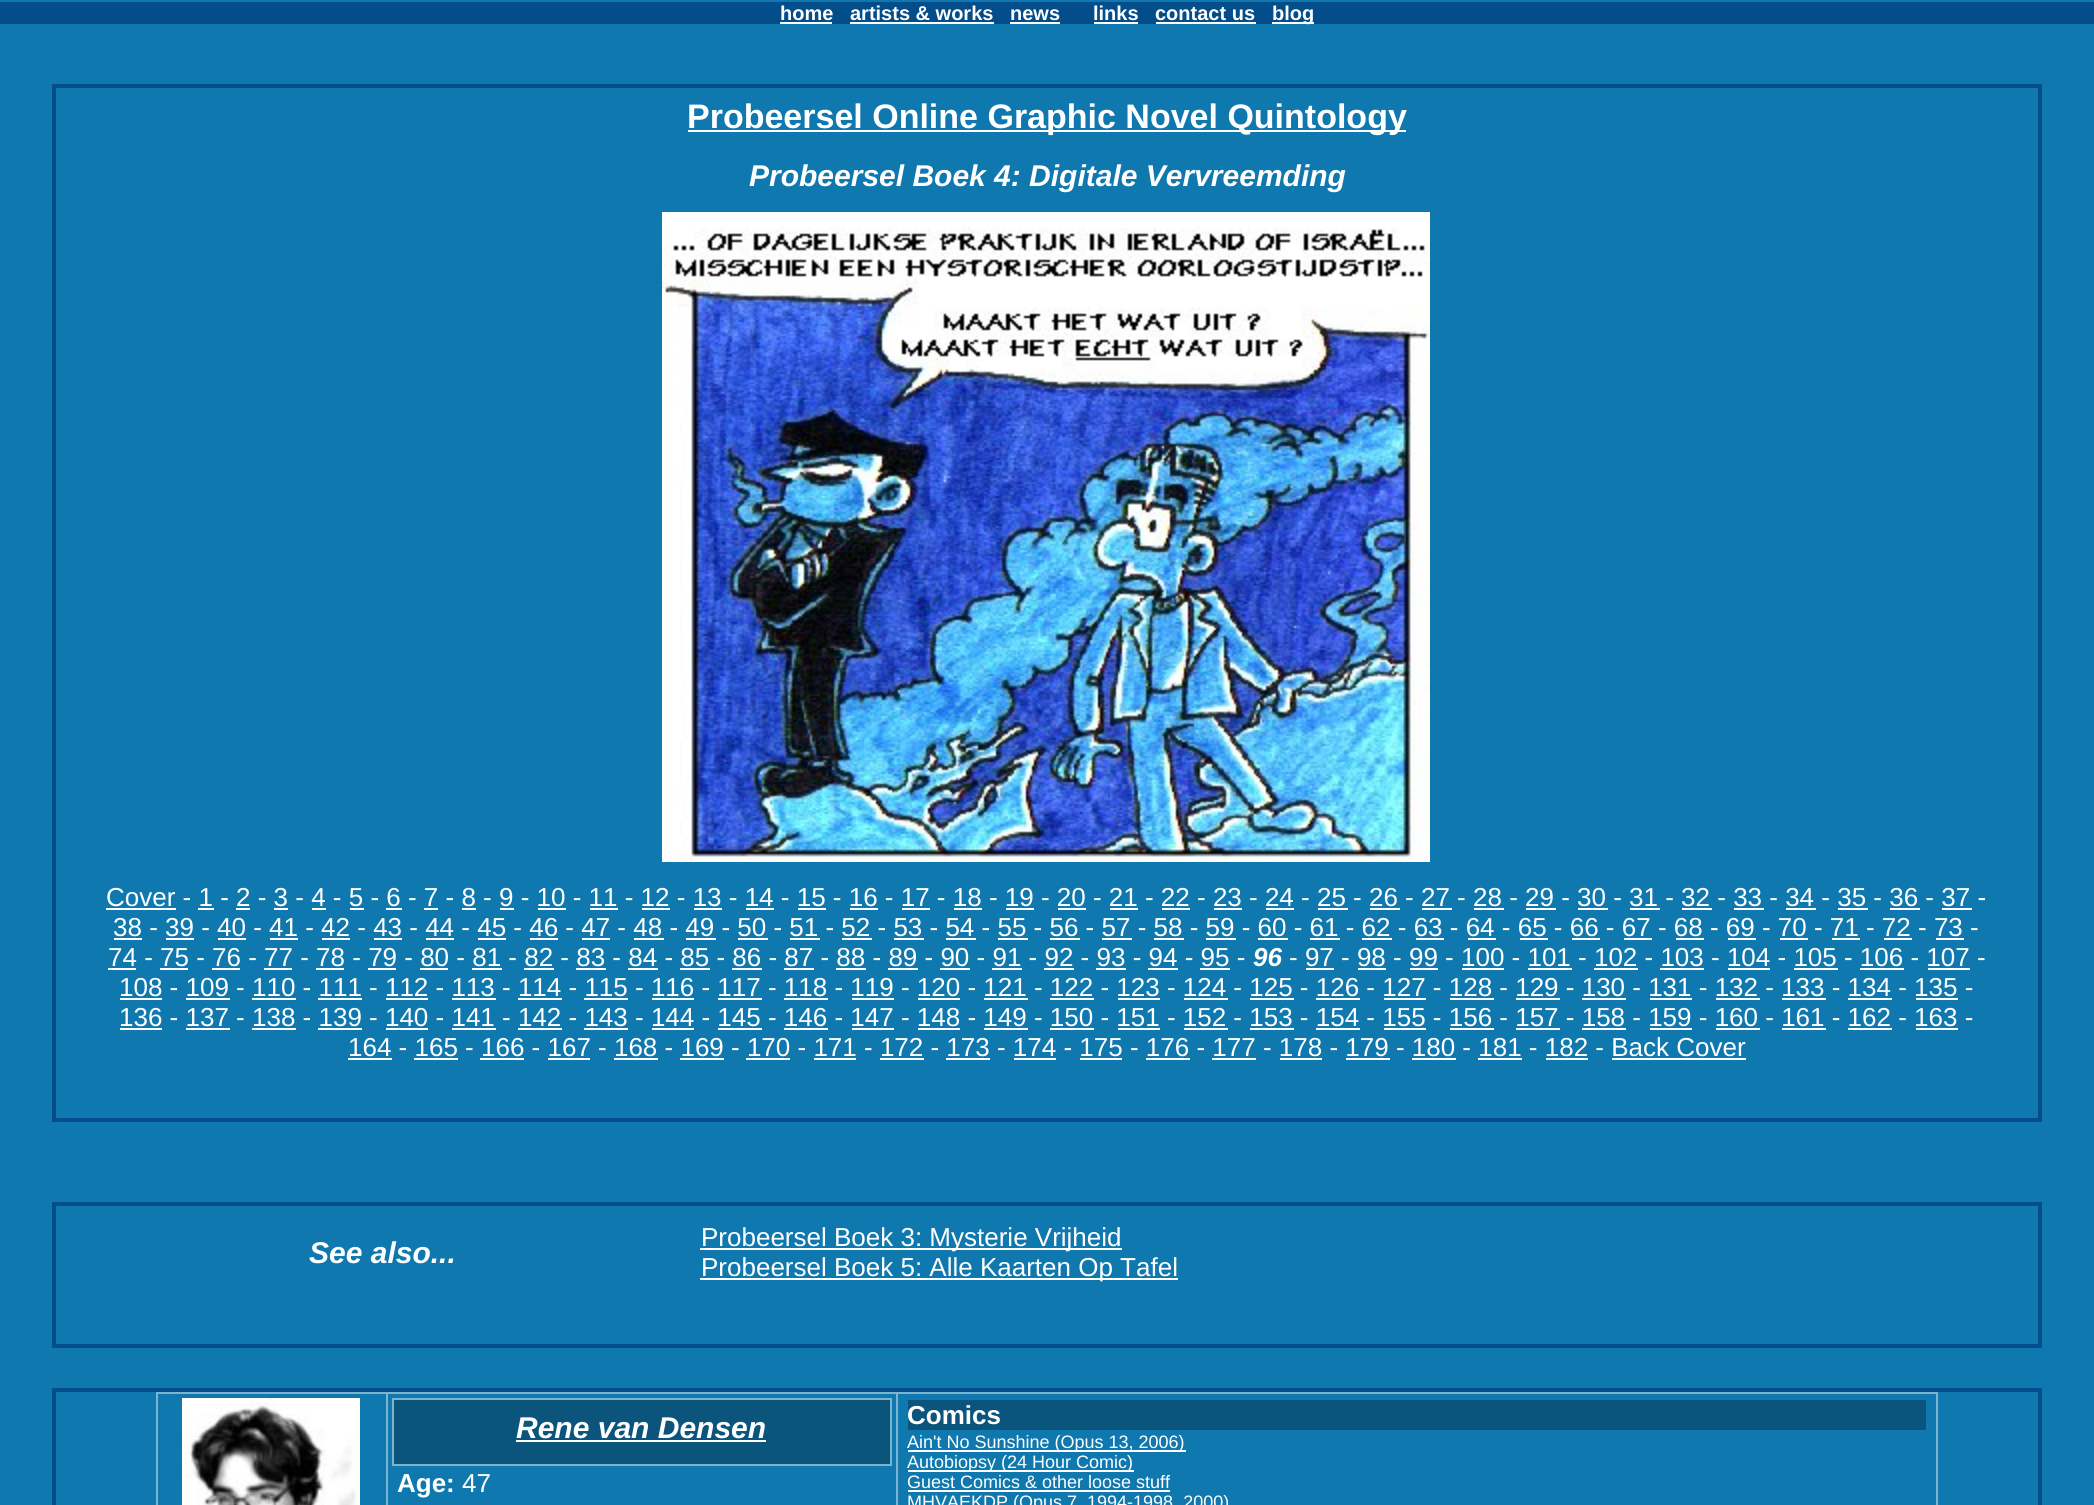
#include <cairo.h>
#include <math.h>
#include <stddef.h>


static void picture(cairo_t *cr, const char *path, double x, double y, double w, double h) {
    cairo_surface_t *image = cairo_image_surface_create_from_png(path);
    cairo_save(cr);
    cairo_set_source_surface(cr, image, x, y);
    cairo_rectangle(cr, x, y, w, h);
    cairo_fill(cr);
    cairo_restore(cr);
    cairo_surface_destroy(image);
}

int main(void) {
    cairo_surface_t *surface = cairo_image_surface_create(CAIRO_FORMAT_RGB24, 2094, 1505);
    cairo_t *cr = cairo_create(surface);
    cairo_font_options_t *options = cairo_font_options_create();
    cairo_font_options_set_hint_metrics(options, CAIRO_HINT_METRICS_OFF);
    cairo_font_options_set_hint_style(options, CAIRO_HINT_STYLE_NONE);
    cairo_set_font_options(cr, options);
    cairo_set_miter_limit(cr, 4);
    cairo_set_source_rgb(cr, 0.059, 0.471, 0.686);
    cairo_paint(cr);
    cairo_set_source_rgb(cr, 0.012, 0.302, 0.541);
    cairo_rectangle(cr, 0, 2, 2094, 22);
    cairo_fill(cr);
    cairo_select_font_face(cr, "Liberation Sans", CAIRO_FONT_SLANT_NORMAL, CAIRO_FONT_WEIGHT_BOLD);
    cairo_set_font_size(cr, 20);
    cairo_set_source_rgb(cr, 1, 1, 1);
    cairo_move_to(cr, 780, 20);
    cairo_show_text(cr, "home");
    cairo_rectangle(cr, 780, 22, 52, 2);
    cairo_fill(cr);
    cairo_move_to(cr, 850, 20);
    cairo_show_text(cr, "artists & works");
    cairo_rectangle(cr, 850, 22, 144, 2);
    cairo_fill(cr);
    cairo_move_to(cr, 1010, 20);
    cairo_show_text(cr, "news");
    cairo_rectangle(cr, 1010, 22, 50, 2);
    cairo_fill(cr);
    cairo_move_to(cr, 1093, 20);
    cairo_show_text(cr, "links");
    cairo_rectangle(cr, 1094, 22, 44, 2);
    cairo_fill(cr);
    cairo_move_to(cr, 1155, 20);
    cairo_show_text(cr, "contact us");
    cairo_rectangle(cr, 1156, 22, 100, 2);
    cairo_fill(cr);
    cairo_rectangle(cr, 1272, 22, 42, 2);
    cairo_fill(cr);
    cairo_move_to(cr, 1272, 20);
    cairo_show_text(cr, "blog");
    cairo_set_source_rgb(cr, 0.012, 0.302, 0.541);
    cairo_rectangle(cr, 52, 84, 1990, 4);
    cairo_fill(cr);
    cairo_rectangle(cr, 52, 88, 4, 1030);
    cairo_fill(cr);
    cairo_set_source_rgb(cr, 1, 1, 1);
    cairo_rectangle(cr, 688, 130, 718, 2);
    cairo_fill(cr);
    cairo_set_font_size(cr, 34);
    cairo_move_to(cr, 687, 128);
    cairo_show_text(cr, "Probeersel Online Graphic Novel Quintology");
    cairo_select_font_face(cr, "Liberation Sans", CAIRO_FONT_SLANT_ITALIC, CAIRO_FONT_WEIGHT_BOLD);
    cairo_set_font_size(cr, 30);
    cairo_move_to(cr, 749, 186);
    cairo_show_text(cr, "Probeersel Boek 4: Digitale Vervreemding");
    picture(cr, "img1.png", 662, 212, 768, 650);
    cairo_select_font_face(cr, "Liberation Sans", CAIRO_FONT_SLANT_NORMAL, CAIRO_FONT_WEIGHT_NORMAL);
    cairo_set_font_size(cr, 26);
    cairo_move_to(cr, 106, 906);
    cairo_show_text(cr, "Cover - 1 - 2 - 3 - 4 - 5 - 6 - 7 - 8 - 9 - 10 - 11 - 12 - 13 - 14 - 15 - 16 - 17 - 18 - 19 - 20 - 21 - 22 - 23 - 24 - 25 - 26 - 27 - 28 - 29 - 30 - 31 - 32 - 33 - 34 - 35 - 36 - 37 -");
    cairo_rectangle(cr, 106, 908, 70, 2);
    cairo_fill(cr);
    cairo_rectangle(cr, 198, 908, 16, 2);
    cairo_fill(cr);
    cairo_rectangle(cr, 236, 908, 14, 2);
    cairo_fill(cr);
    cairo_rectangle(cr, 274, 908, 14, 2);
    cairo_fill(cr);
    cairo_rectangle(cr, 312, 908, 14, 2);
    cairo_fill(cr);
    cairo_rectangle(cr, 350, 908, 14, 2);
    cairo_fill(cr);
    cairo_rectangle(cr, 386, 908, 16, 2);
    cairo_fill(cr);
    cairo_rectangle(cr, 424, 908, 14, 2);
    cairo_fill(cr);
    cairo_rectangle(cr, 462, 908, 14, 2);
    cairo_fill(cr);
    cairo_rectangle(cr, 500, 908, 14, 2);
    cairo_fill(cr);
    cairo_rectangle(cr, 538, 908, 28, 2);
    cairo_fill(cr);
    cairo_rectangle(cr, 590, 908, 28, 2);
    cairo_fill(cr);
    cairo_rectangle(cr, 642, 908, 28, 2);
    cairo_fill(cr);
    cairo_rectangle(cr, 694, 908, 28, 2);
    cairo_fill(cr);
    cairo_rectangle(cr, 746, 908, 28, 2);
    cairo_fill(cr);
    cairo_rectangle(cr, 798, 908, 28, 2);
    cairo_fill(cr);
    cairo_rectangle(cr, 850, 908, 28, 2);
    cairo_fill(cr);
    cairo_rectangle(cr, 902, 908, 28, 2);
    cairo_fill(cr);
    cairo_rectangle(cr, 954, 908, 28, 2);
    cairo_fill(cr);
    cairo_rectangle(cr, 1006, 908, 28, 2);
    cairo_fill(cr);
    cairo_rectangle(cr, 1058, 908, 28, 2);
    cairo_fill(cr);
    cairo_rectangle(cr, 1110, 908, 28, 2);
    cairo_fill(cr);
    cairo_rectangle(cr, 1162, 908, 28, 2);
    cairo_fill(cr);
    cairo_rectangle(cr, 1214, 908, 28, 2);
    cairo_fill(cr);
    cairo_rectangle(cr, 1266, 908, 28, 2);
    cairo_fill(cr);
    cairo_rectangle(cr, 1318, 908, 30, 2);
    cairo_fill(cr);
    cairo_rectangle(cr, 1370, 908, 30, 2);
    cairo_fill(cr);
    cairo_rectangle(cr, 1422, 908, 30, 2);
    cairo_fill(cr);
    cairo_rectangle(cr, 1474, 908, 30, 2);
    cairo_fill(cr);
    cairo_rectangle(cr, 1526, 908, 30, 2);
    cairo_fill(cr);
    cairo_rectangle(cr, 1578, 908, 30, 2);
    cairo_fill(cr);
    cairo_rectangle(cr, 1630, 908, 30, 2);
    cairo_fill(cr);
    cairo_rectangle(cr, 1682, 908, 30, 2);
    cairo_fill(cr);
    cairo_rectangle(cr, 1734, 908, 30, 2);
    cairo_fill(cr);
    cairo_rectangle(cr, 1786, 908, 30, 2);
    cairo_fill(cr);
    cairo_rectangle(cr, 1838, 908, 30, 2);
    cairo_fill(cr);
    cairo_rectangle(cr, 1890, 908, 30, 2);
    cairo_fill(cr);
    cairo_rectangle(cr, 1942, 908, 30, 2);
    cairo_fill(cr);
    cairo_move_to(cr, 113, 936);
    cairo_show_text(cr, "38 - 39 - 40 - 41 - 42 - 43 - 44 - 45 - 46 - 47 - 48 - 49 - 50 - 51 - 52 - 53 - 54 - 55 - 56 - 57 - 58 - 59 - 60 - 61 - 62 - 63 - 64 - 65 - 66 - 67 - 68 - 69 - 70 - 71 - 72 - 73 -");
    cairo_rectangle(cr, 114, 938, 28, 2);
    cairo_fill(cr);
    cairo_rectangle(cr, 166, 938, 28, 2);
    cairo_fill(cr);
    cairo_rectangle(cr, 218, 938, 28, 2);
    cairo_fill(cr);
    cairo_rectangle(cr, 270, 938, 28, 2);
    cairo_fill(cr);
    cairo_rectangle(cr, 322, 938, 28, 2);
    cairo_fill(cr);
    cairo_rectangle(cr, 374, 938, 28, 2);
    cairo_fill(cr);
    cairo_rectangle(cr, 426, 938, 28, 2);
    cairo_fill(cr);
    cairo_rectangle(cr, 478, 938, 28, 2);
    cairo_fill(cr);
    cairo_rectangle(cr, 530, 938, 28, 2);
    cairo_fill(cr);
    cairo_rectangle(cr, 582, 938, 28, 2);
    cairo_fill(cr);
    cairo_rectangle(cr, 634, 938, 30, 2);
    cairo_fill(cr);
    cairo_rectangle(cr, 686, 938, 30, 2);
    cairo_fill(cr);
    cairo_rectangle(cr, 738, 938, 30, 2);
    cairo_fill(cr);
    cairo_rectangle(cr, 790, 938, 30, 2);
    cairo_fill(cr);
    cairo_rectangle(cr, 842, 938, 30, 2);
    cairo_fill(cr);
    cairo_rectangle(cr, 894, 938, 30, 2);
    cairo_fill(cr);
    cairo_rectangle(cr, 946, 938, 30, 2);
    cairo_fill(cr);
    cairo_rectangle(cr, 998, 938, 30, 2);
    cairo_fill(cr);
    cairo_rectangle(cr, 1050, 938, 30, 2);
    cairo_fill(cr);
    cairo_rectangle(cr, 1102, 938, 30, 2);
    cairo_fill(cr);
    cairo_rectangle(cr, 1154, 938, 30, 2);
    cairo_fill(cr);
    cairo_rectangle(cr, 1206, 938, 30, 2);
    cairo_fill(cr);
    cairo_rectangle(cr, 1258, 938, 30, 2);
    cairo_fill(cr);
    cairo_rectangle(cr, 1310, 938, 30, 2);
    cairo_fill(cr);
    cairo_rectangle(cr, 1362, 938, 30, 2);
    cairo_fill(cr);
    cairo_rectangle(cr, 1416, 938, 28, 2);
    cairo_fill(cr);
    cairo_rectangle(cr, 1468, 938, 28, 2);
    cairo_fill(cr);
    cairo_rectangle(cr, 1520, 938, 28, 2);
    cairo_fill(cr);
    cairo_rectangle(cr, 1572, 938, 28, 2);
    cairo_fill(cr);
    cairo_rectangle(cr, 1624, 938, 28, 2);
    cairo_fill(cr);
    cairo_rectangle(cr, 1676, 938, 28, 2);
    cairo_fill(cr);
    cairo_rectangle(cr, 1728, 938, 28, 2);
    cairo_fill(cr);
    cairo_rectangle(cr, 1780, 938, 28, 2);
    cairo_fill(cr);
    cairo_rectangle(cr, 1832, 938, 28, 2);
    cairo_fill(cr);
    cairo_rectangle(cr, 1884, 938, 28, 2);
    cairo_fill(cr);
    cairo_rectangle(cr, 1936, 938, 28, 2);
    cairo_fill(cr);
    cairo_move_to(cr, 108, 966);
    cairo_show_text(cr, "74 - 75 - 76 - 77 - 78 - 79 - 80 - 81 - 82 - 83 - 84 - 85 - 86 - 87 - 88 - 89 - 90 - 91 - 92 - 93 - 94 - 95 -");
    cairo_rectangle(cr, 108, 968, 28, 2);
    cairo_fill(cr);
    cairo_select_font_face(cr, "Liberation Sans", CAIRO_FONT_SLANT_ITALIC, CAIRO_FONT_WEIGHT_BOLD);
    cairo_move_to(cr, 1253, 966);
    cairo_show_text(cr, "96");
    cairo_select_font_face(cr, "Liberation Sans", CAIRO_FONT_SLANT_NORMAL, CAIRO_FONT_WEIGHT_NORMAL);
    cairo_move_to(cr, 1289, 966);
    cairo_show_text(cr, "- 97 - 98 - 99 - 100 - 101 - 102 - 103 - 104 - 105 - 106 - 107 -");
    cairo_rectangle(cr, 160, 968, 28, 2);
    cairo_fill(cr);
    cairo_rectangle(cr, 212, 968, 28, 2);
    cairo_fill(cr);
    cairo_rectangle(cr, 264, 968, 28, 2);
    cairo_fill(cr);
    cairo_rectangle(cr, 316, 968, 28, 2);
    cairo_fill(cr);
    cairo_rectangle(cr, 368, 968, 28, 2);
    cairo_fill(cr);
    cairo_rectangle(cr, 420, 968, 28, 2);
    cairo_fill(cr);
    cairo_rectangle(cr, 472, 968, 30, 2);
    cairo_fill(cr);
    cairo_rectangle(cr, 524, 968, 30, 2);
    cairo_fill(cr);
    cairo_rectangle(cr, 576, 968, 30, 2);
    cairo_fill(cr);
    cairo_rectangle(cr, 628, 968, 30, 2);
    cairo_fill(cr);
    cairo_rectangle(cr, 680, 968, 30, 2);
    cairo_fill(cr);
    cairo_rectangle(cr, 732, 968, 30, 2);
    cairo_fill(cr);
    cairo_rectangle(cr, 784, 968, 30, 2);
    cairo_fill(cr);
    cairo_rectangle(cr, 836, 968, 30, 2);
    cairo_fill(cr);
    cairo_rectangle(cr, 888, 968, 30, 2);
    cairo_fill(cr);
    cairo_rectangle(cr, 940, 968, 30, 2);
    cairo_fill(cr);
    cairo_rectangle(cr, 992, 968, 30, 2);
    cairo_fill(cr);
    cairo_rectangle(cr, 1044, 968, 30, 2);
    cairo_fill(cr);
    cairo_rectangle(cr, 1096, 968, 30, 2);
    cairo_fill(cr);
    cairo_rectangle(cr, 1148, 968, 30, 2);
    cairo_fill(cr);
    cairo_rectangle(cr, 1200, 968, 30, 2);
    cairo_fill(cr);
    cairo_rectangle(cr, 1306, 968, 28, 2);
    cairo_fill(cr);
    cairo_rectangle(cr, 1358, 968, 28, 2);
    cairo_fill(cr);
    cairo_rectangle(cr, 1410, 968, 28, 2);
    cairo_fill(cr);
    cairo_rectangle(cr, 1462, 968, 42, 2);
    cairo_fill(cr);
    cairo_rectangle(cr, 1528, 968, 44, 2);
    cairo_fill(cr);
    cairo_rectangle(cr, 1594, 968, 44, 2);
    cairo_fill(cr);
    cairo_rectangle(cr, 1660, 968, 44, 2);
    cairo_fill(cr);
    cairo_rectangle(cr, 1728, 968, 42, 2);
    cairo_fill(cr);
    cairo_rectangle(cr, 1794, 968, 44, 2);
    cairo_fill(cr);
    cairo_rectangle(cr, 1860, 968, 44, 2);
    cairo_fill(cr);
    cairo_rectangle(cr, 1928, 968, 42, 2);
    cairo_fill(cr);
    cairo_move_to(cr, 119, 996);
    cairo_show_text(cr, "108 - 109 - 110 - 111 - 112 - 113 - 114 - 115 - 116 - 117 - 118 - 119 - 120 - 121 - 122 - 123 - 124 - 125 - 126 - 127 - 128 - 129 - 130 - 131 - 132 - 133 - 134 - 135 -");
    cairo_rectangle(cr, 120, 998, 42, 2);
    cairo_fill(cr);
    cairo_rectangle(cr, 186, 998, 44, 2);
    cairo_fill(cr);
    cairo_rectangle(cr, 252, 998, 44, 2);
    cairo_fill(cr);
    cairo_rectangle(cr, 318, 998, 44, 2);
    cairo_fill(cr);
    cairo_rectangle(cr, 386, 998, 42, 2);
    cairo_fill(cr);
    cairo_rectangle(cr, 452, 998, 44, 2);
    cairo_fill(cr);
    cairo_rectangle(cr, 518, 998, 44, 2);
    cairo_fill(cr);
    cairo_rectangle(cr, 584, 998, 44, 2);
    cairo_fill(cr);
    cairo_rectangle(cr, 652, 998, 42, 2);
    cairo_fill(cr);
    cairo_rectangle(cr, 718, 998, 44, 2);
    cairo_fill(cr);
    cairo_rectangle(cr, 784, 998, 44, 2);
    cairo_fill(cr);
    cairo_rectangle(cr, 852, 998, 42, 2);
    cairo_fill(cr);
    cairo_rectangle(cr, 918, 998, 42, 2);
    cairo_fill(cr);
    cairo_rectangle(cr, 984, 998, 44, 2);
    cairo_fill(cr);
    cairo_rectangle(cr, 1050, 998, 44, 2);
    cairo_fill(cr);
    cairo_rectangle(cr, 1118, 998, 42, 2);
    cairo_fill(cr);
    cairo_rectangle(cr, 1184, 998, 44, 2);
    cairo_fill(cr);
    cairo_rectangle(cr, 1250, 998, 44, 2);
    cairo_fill(cr);
    cairo_rectangle(cr, 1316, 998, 44, 2);
    cairo_fill(cr);
    cairo_rectangle(cr, 1384, 998, 42, 2);
    cairo_fill(cr);
    cairo_rectangle(cr, 1450, 998, 44, 2);
    cairo_fill(cr);
    cairo_rectangle(cr, 1516, 998, 44, 2);
    cairo_fill(cr);
    cairo_rectangle(cr, 1582, 998, 44, 2);
    cairo_fill(cr);
    cairo_rectangle(cr, 1650, 998, 42, 2);
    cairo_fill(cr);
    cairo_rectangle(cr, 1716, 998, 44, 2);
    cairo_fill(cr);
    cairo_rectangle(cr, 1782, 998, 44, 2);
    cairo_fill(cr);
    cairo_rectangle(cr, 1848, 998, 44, 2);
    cairo_fill(cr);
    cairo_rectangle(cr, 1916, 998, 42, 2);
    cairo_fill(cr);
    cairo_move_to(cr, 119, 1026);
    cairo_show_text(cr, "136 - 137 - 138 - 139 - 140 - 141 - 142 - 143 - 144 - 145 - 146 - 147 - 148 - 149 - 150 - 151 - 152 - 153 - 154 - 155 - 156 - 157 - 158 - 159 - 160 - 161 - 162 - 163 -");
    cairo_rectangle(cr, 120, 1028, 42, 2);
    cairo_fill(cr);
    cairo_rectangle(cr, 186, 1028, 44, 2);
    cairo_fill(cr);
    cairo_rectangle(cr, 252, 1028, 44, 2);
    cairo_fill(cr);
    cairo_rectangle(cr, 318, 1028, 44, 2);
    cairo_fill(cr);
    cairo_rectangle(cr, 386, 1028, 42, 2);
    cairo_fill(cr);
    cairo_rectangle(cr, 452, 1028, 44, 2);
    cairo_fill(cr);
    cairo_rectangle(cr, 518, 1028, 44, 2);
    cairo_fill(cr);
    cairo_rectangle(cr, 584, 1028, 44, 2);
    cairo_fill(cr);
    cairo_rectangle(cr, 652, 1028, 42, 2);
    cairo_fill(cr);
    cairo_rectangle(cr, 718, 1028, 44, 2);
    cairo_fill(cr);
    cairo_rectangle(cr, 784, 1028, 44, 2);
    cairo_fill(cr);
    cairo_rectangle(cr, 852, 1028, 42, 2);
    cairo_fill(cr);
    cairo_rectangle(cr, 918, 1028, 42, 2);
    cairo_fill(cr);
    cairo_rectangle(cr, 984, 1028, 44, 2);
    cairo_fill(cr);
    cairo_rectangle(cr, 1050, 1028, 44, 2);
    cairo_fill(cr);
    cairo_rectangle(cr, 1118, 1028, 42, 2);
    cairo_fill(cr);
    cairo_rectangle(cr, 1184, 1028, 44, 2);
    cairo_fill(cr);
    cairo_rectangle(cr, 1250, 1028, 44, 2);
    cairo_fill(cr);
    cairo_rectangle(cr, 1316, 1028, 44, 2);
    cairo_fill(cr);
    cairo_rectangle(cr, 1384, 1028, 42, 2);
    cairo_fill(cr);
    cairo_rectangle(cr, 1450, 1028, 44, 2);
    cairo_fill(cr);
    cairo_rectangle(cr, 1516, 1028, 44, 2);
    cairo_fill(cr);
    cairo_rectangle(cr, 1582, 1028, 44, 2);
    cairo_fill(cr);
    cairo_rectangle(cr, 1650, 1028, 42, 2);
    cairo_fill(cr);
    cairo_rectangle(cr, 1716, 1028, 44, 2);
    cairo_fill(cr);
    cairo_rectangle(cr, 1782, 1028, 44, 2);
    cairo_fill(cr);
    cairo_rectangle(cr, 1848, 1028, 44, 2);
    cairo_fill(cr);
    cairo_rectangle(cr, 1916, 1028, 42, 2);
    cairo_fill(cr);
    cairo_move_to(cr, 348, 1056);
    cairo_show_text(cr, "164 - 165 - 166 - 167 - 168 - 169 - 170 - 171 - 172 - 173 - 174 - 175 - 176 - 177 - 178 - 179 - 180 - 181 - 182 - Back Cover");
    cairo_rectangle(cr, 348, 1058, 44, 2);
    cairo_fill(cr);
    cairo_rectangle(cr, 414, 1058, 44, 2);
    cairo_fill(cr);
    cairo_rectangle(cr, 480, 1058, 44, 2);
    cairo_fill(cr);
    cairo_rectangle(cr, 548, 1058, 42, 2);
    cairo_fill(cr);
    cairo_rectangle(cr, 614, 1058, 44, 2);
    cairo_fill(cr);
    cairo_rectangle(cr, 680, 1058, 44, 2);
    cairo_fill(cr);
    cairo_rectangle(cr, 746, 1058, 44, 2);
    cairo_fill(cr);
    cairo_rectangle(cr, 814, 1058, 42, 2);
    cairo_fill(cr);
    cairo_rectangle(cr, 880, 1058, 44, 2);
    cairo_fill(cr);
    cairo_rectangle(cr, 946, 1058, 44, 2);
    cairo_fill(cr);
    cairo_rectangle(cr, 1014, 1058, 42, 2);
    cairo_fill(cr);
    cairo_rectangle(cr, 1080, 1058, 42, 2);
    cairo_fill(cr);
    cairo_rectangle(cr, 1146, 1058, 44, 2);
    cairo_fill(cr);
    cairo_rectangle(cr, 1212, 1058, 44, 2);
    cairo_fill(cr);
    cairo_rectangle(cr, 1280, 1058, 42, 2);
    cairo_fill(cr);
    cairo_rectangle(cr, 1346, 1058, 44, 2);
    cairo_fill(cr);
    cairo_rectangle(cr, 1412, 1058, 44, 2);
    cairo_fill(cr);
    cairo_rectangle(cr, 1478, 1058, 44, 2);
    cairo_fill(cr);
    cairo_rectangle(cr, 1546, 1058, 42, 2);
    cairo_fill(cr);
    cairo_rectangle(cr, 1612, 1058, 134, 2);
    cairo_fill(cr);
    cairo_set_source_rgb(cr, 0.012, 0.302, 0.541);
    cairo_rectangle(cr, 2038, 88, 4, 1030);
    cairo_fill(cr);
    cairo_rectangle(cr, 52, 1118, 1990, 4);
    cairo_fill(cr);
    cairo_rectangle(cr, 52, 1202, 1990, 4);
    cairo_fill(cr);
    cairo_rectangle(cr, 52, 1206, 4, 138);
    cairo_fill(cr);
    cairo_select_font_face(cr, "Liberation Sans", CAIRO_FONT_SLANT_ITALIC, CAIRO_FONT_WEIGHT_BOLD);
    cairo_set_font_size(cr, 30);
    cairo_set_source_rgb(cr, 1, 1, 1);
    cairo_move_to(cr, 309, 1263);
    cairo_show_text(cr, "See also...");
    cairo_rectangle(cr, 700, 1248, 422, 2);
    cairo_fill(cr);
    cairo_select_font_face(cr, "Liberation Sans", CAIRO_FONT_SLANT_NORMAL, CAIRO_FONT_WEIGHT_NORMAL);
    cairo_set_font_size(cr, 26);
    cairo_move_to(cr, 701, 1246);
    cairo_show_text(cr, "Probeersel Boek 3: Mysterie Vrijheid");
    cairo_rectangle(cr, 700, 1278, 478, 2);
    cairo_fill(cr);
    cairo_move_to(cr, 701, 1276);
    cairo_show_text(cr, "Probeersel Boek 5: Alle Kaarten Op Tafel");
    cairo_set_source_rgb(cr, 0.012, 0.302, 0.541);
    cairo_rectangle(cr, 2038, 1206, 4, 138);
    cairo_fill(cr);
    cairo_rectangle(cr, 52, 1344, 1990, 4);
    cairo_fill(cr);
    cairo_rectangle(cr, 52, 1388, 1990, 4);
    cairo_fill(cr);
    cairo_rectangle(cr, 52, 1392, 4, 113);
    cairo_fill(cr);
    cairo_set_source_rgb(cr, 0.482, 0.706, 0.808);
    cairo_rectangle(cr, 156, 1392, 2, 113);
    cairo_fill(cr);
    cairo_rectangle(cr, 158, 1392, 1780, 2);
    cairo_fill(cr);
    cairo_rectangle(cr, 386, 1392, 2, 113);
    cairo_fill(cr);
    picture(cr, "img2.png", 182, 1398, 178, 107);
    cairo_rectangle(cr, 896, 1392, 2, 113);
    cairo_fill(cr);
    cairo_rectangle(cr, 392, 1464, 500, 2);
    cairo_fill(cr);
    cairo_rectangle(cr, 392, 1398, 2, 68);
    cairo_fill(cr);
    cairo_set_source_rgb(cr, 0.043, 0.333, 0.486);
    cairo_rectangle(cr, 394, 1400, 496, 64);
    cairo_fill(cr);
    cairo_set_source_rgb(cr, 0.482, 0.706, 0.808);
    cairo_rectangle(cr, 394, 1398, 498, 2);
    cairo_fill(cr);
    cairo_rectangle(cr, 890, 1398, 2, 66);
    cairo_fill(cr);
    cairo_select_font_face(cr, "Liberation Sans", CAIRO_FONT_SLANT_ITALIC, CAIRO_FONT_WEIGHT_BOLD);
    cairo_set_font_size(cr, 30);
    cairo_set_source_rgb(cr, 1, 1, 1);
    cairo_move_to(cr, 516, 1438);
    cairo_show_text(cr, "Rene van Densen");
    cairo_rectangle(cr, 516, 1440, 250, 2);
    cairo_fill(cr);
    cairo_select_font_face(cr, "Liberation Sans", CAIRO_FONT_SLANT_NORMAL, CAIRO_FONT_WEIGHT_BOLD);
    cairo_set_font_size(cr, 26);
    cairo_move_to(cr, 397, 1492);
    cairo_show_text(cr, "Age:");
    cairo_select_font_face(cr, "Liberation Sans", CAIRO_FONT_SLANT_NORMAL, CAIRO_FONT_WEIGHT_NORMAL);
    cairo_move_to(cr, 462, 1492);
    cairo_show_text(cr, "47");
    cairo_set_source_rgb(cr, 0.482, 0.706, 0.808);
    cairo_rectangle(cr, 1936, 1392, 2, 113);
    cairo_fill(cr);
    cairo_set_source_rgb(cr, 0.043, 0.333, 0.486);
    cairo_rectangle(cr, 908, 1400, 1018, 30);
    cairo_fill(cr);
    cairo_select_font_face(cr, "Liberation Sans", CAIRO_FONT_SLANT_NORMAL, CAIRO_FONT_WEIGHT_BOLD);
    cairo_set_source_rgb(cr, 1, 1, 1);
    cairo_move_to(cr, 907, 1424);
    cairo_show_text(cr, "Comics");
    cairo_rectangle(cr, 908, 1450, 278, 2);
    cairo_fill(cr);
    cairo_select_font_face(cr, "Liberation Sans", CAIRO_FONT_SLANT_NORMAL, CAIRO_FONT_WEIGHT_NORMAL);
    cairo_set_font_size(cr, 18);
    cairo_move_to(cr, 907, 1448);
    cairo_show_text(cr, "Ain't No Sunshine (Opus 13, 2006)");
    cairo_rectangle(cr, 908, 1470, 226, 2);
    cairo_fill(cr);
    cairo_move_to(cr, 907, 1468);
    cairo_show_text(cr, "Autobiopsy (24 Hour Comic)");
    cairo_move_to(cr, 907, 1488);
    cairo_show_text(cr, "Guest Comics & other loose stuff");
    cairo_rectangle(cr, 908, 1490, 262, 2);
    cairo_fill(cr);
    cairo_move_to(cr, 907, 1508);
    cairo_show_text(cr, "MHVAEKDP (Opus 7, 1994-1998, 2000)");
    cairo_set_source_rgb(cr, 0.012, 0.302, 0.541);
    cairo_rectangle(cr, 2038, 1392, 4, 113);
    cairo_fill(cr);
    cairo_surface_write_to_png(surface, "page.png");
    cairo_font_options_destroy(options);
    cairo_destroy(cr);
    cairo_surface_destroy(surface);
    return 0;
}
